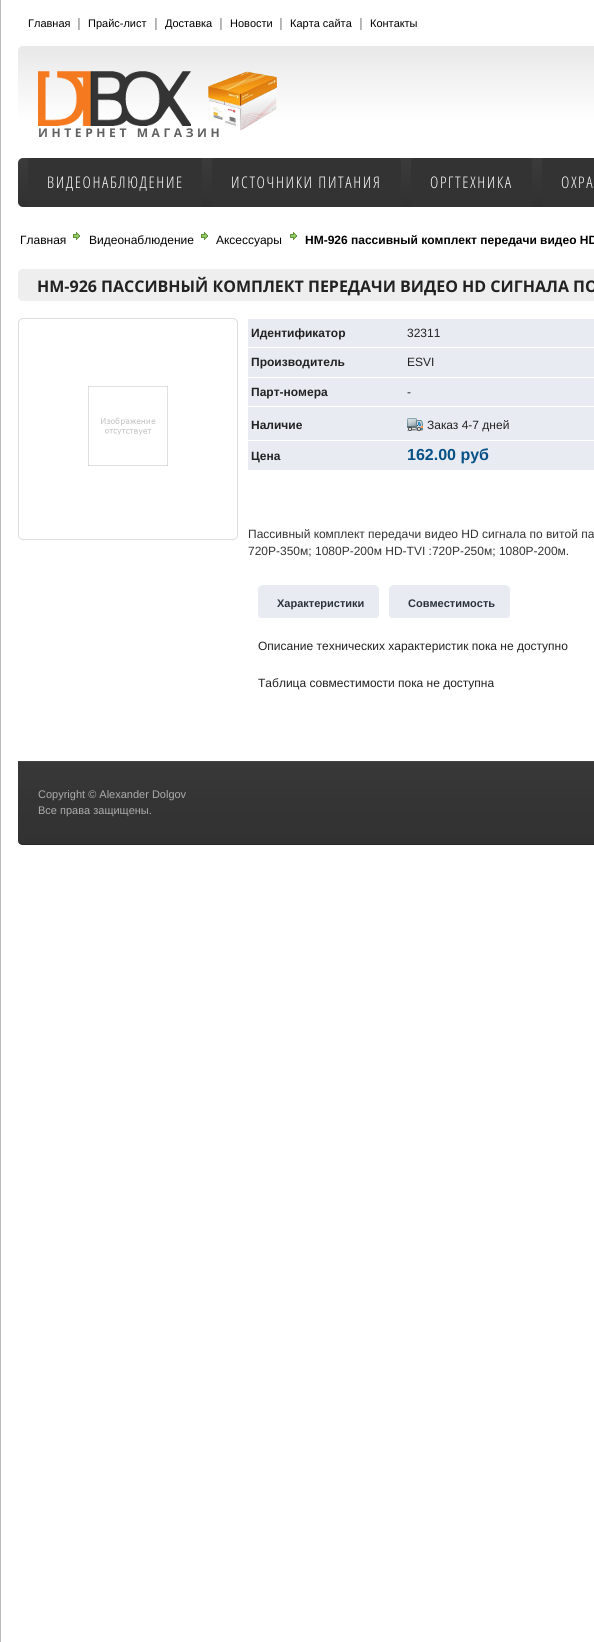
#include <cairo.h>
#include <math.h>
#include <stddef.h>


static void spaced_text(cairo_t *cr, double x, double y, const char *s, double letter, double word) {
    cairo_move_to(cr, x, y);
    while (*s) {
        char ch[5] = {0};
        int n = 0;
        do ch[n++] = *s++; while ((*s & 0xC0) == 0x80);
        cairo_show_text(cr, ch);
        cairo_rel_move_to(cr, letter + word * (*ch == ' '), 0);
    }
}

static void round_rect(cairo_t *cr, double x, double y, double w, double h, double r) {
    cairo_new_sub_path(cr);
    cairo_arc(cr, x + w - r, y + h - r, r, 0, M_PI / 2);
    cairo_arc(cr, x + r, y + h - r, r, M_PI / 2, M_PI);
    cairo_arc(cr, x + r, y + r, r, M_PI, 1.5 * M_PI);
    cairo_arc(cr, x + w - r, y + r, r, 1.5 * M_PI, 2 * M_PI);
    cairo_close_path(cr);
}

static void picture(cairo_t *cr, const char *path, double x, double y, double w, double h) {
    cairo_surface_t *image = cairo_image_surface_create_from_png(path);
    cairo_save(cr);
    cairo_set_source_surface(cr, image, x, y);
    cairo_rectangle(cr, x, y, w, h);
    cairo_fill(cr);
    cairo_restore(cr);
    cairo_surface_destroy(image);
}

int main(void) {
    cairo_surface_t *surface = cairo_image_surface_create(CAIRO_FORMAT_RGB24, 594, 1642);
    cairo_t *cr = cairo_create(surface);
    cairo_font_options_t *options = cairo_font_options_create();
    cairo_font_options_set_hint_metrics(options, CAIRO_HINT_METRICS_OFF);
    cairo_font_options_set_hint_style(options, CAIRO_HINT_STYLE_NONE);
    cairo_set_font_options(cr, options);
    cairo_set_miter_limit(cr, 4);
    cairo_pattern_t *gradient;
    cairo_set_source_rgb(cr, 1, 1, 1);
    cairo_paint(cr);
    cairo_set_source_rgb(cr, 0.733, 0.733, 0.733);
    cairo_rectangle(cr, 0, 0, 1, 1642);
    cairo_fill(cr);
    gradient = cairo_pattern_create_linear(591, 46, 591, 158);
    cairo_pattern_add_color_stop_rgba(gradient, 0, 0.91, 0.91, 0.91, 1);
    cairo_pattern_add_color_stop_rgba(gradient, 0.68, 1, 1, 1, 1);
    cairo_set_source(cr, gradient);
    cairo_pattern_destroy(gradient);
    cairo_new_path(cr);
    cairo_move_to(cr, 23, 46);
    cairo_line_to(cr, 594, 46);
    cairo_curve_to(cr, 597, 46, 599, 48, 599, 51);
    cairo_line_to(cr, 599, 158);
    cairo_line_to(cr, 18, 158);
    cairo_line_to(cr, 18, 51);
    cairo_curve_to(cr, 18, 48, 20, 46, 23, 46);
    cairo_close_path(cr);
    cairo_fill(cr);
    cairo_select_font_face(cr, "Liberation Sans", CAIRO_FONT_SLANT_NORMAL, CAIRO_FONT_WEIGHT_NORMAL);
    cairo_set_font_size(cr, 11);
    cairo_set_source_rgb(cr, 0, 0, 0);
    cairo_move_to(cr, 28, 27);
    cairo_show_text(cr, "Главная");
    picture(cr, "img1.png", 78, 18, 2, 12);
    cairo_move_to(cr, 88, 27);
    cairo_show_text(cr, "Прайс-лист");
    picture(cr, "img1.png", 155, 18, 2, 12);
    cairo_move_to(cr, 165, 27);
    cairo_show_text(cr, "Доставка");
    picture(cr, "img1.png", 220, 18, 2, 12);
    cairo_move_to(cr, 230, 27);
    cairo_show_text(cr, "Новости");
    picture(cr, "img1.png", 280, 18, 2, 12);
    cairo_move_to(cr, 290, 27);
    cairo_show_text(cr, "Карта сайта");
    picture(cr, "img1.png", 360, 18, 2, 12);
    cairo_move_to(cr, 370, 27);
    cairo_show_text(cr, "Контакты");
    picture(cr, "img2.png", 38, 71, 153, 55);
    picture(cr, "img3.png", 208, 71, 69, 60);
    cairo_select_font_face(cr, "Open Sans", CAIRO_FONT_SLANT_NORMAL, CAIRO_FONT_WEIGHT_BOLD);
    cairo_set_font_size(cr, 12);
    cairo_set_source_rgb(cr, 0.38, 0.38, 0.38);
    spaced_text(cr, 38, 137, "ИНТЕРНЕТ МАГАЗИН", 3.6, 0);
    gradient = cairo_pattern_create_linear(591, 158, 591, 207);
    cairo_pattern_add_color_stop_rgba(gradient, 0, 0.231, 0.231, 0.231, 1);
    cairo_pattern_add_color_stop_rgba(gradient, 1, 0.188, 0.188, 0.188, 1);
    cairo_set_source(cr, gradient);
    cairo_pattern_destroy(gradient);
    round_rect(cr, 18, 158, 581, 49, 5);
    cairo_fill(cr);
    cairo_set_source_rgb(cr, 0.2, 0.2, 0.2);
    round_rect(cr, 28, 158, 174, 49, 2);
    cairo_fill(cr);
    cairo_select_font_face(cr, "Open Sans Light", CAIRO_FONT_SLANT_NORMAL, CAIRO_FONT_WEIGHT_NORMAL);
    cairo_set_font_size(cr, 16);
    cairo_set_source_rgb(cr, 1, 1, 1);
    spaced_text(cr, 47, 188, "ВИДЕОНАБЛЮДЕНИЕ", 1.6, 0);
    cairo_set_source_rgb(cr, 0.2, 0.2, 0.2);
    round_rect(cr, 212, 158, 189, 49, 2);
    cairo_fill(cr);
    cairo_set_source_rgb(cr, 1, 1, 1);
    spaced_text(cr, 231, 188, "ИСТОЧНИКИ ПИТАНИЯ", 1.6, 0);
    cairo_set_source_rgb(cr, 0.2, 0.2, 0.2);
    round_rect(cr, 411, 158, 121, 49, 2);
    cairo_fill(cr);
    cairo_set_source_rgb(cr, 1, 1, 1);
    spaced_text(cr, 430, 188, "ОРГТЕХНИКА", 1.6, 0);
    cairo_set_source_rgb(cr, 0.2, 0.2, 0.2);
    round_rect(cr, 542, 158, 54, 49, 2);
    cairo_fill(cr);
    cairo_set_source_rgb(cr, 1, 1, 1);
    spaced_text(cr, 561, 188, "ОХРА", 1.6, 0);
    cairo_select_font_face(cr, "Liberation Sans", CAIRO_FONT_SLANT_NORMAL, CAIRO_FONT_WEIGHT_NORMAL);
    cairo_set_font_size(cr, 12);
    cairo_set_source_rgb(cr, 0, 0, 0);
    cairo_move_to(cr, 20, 244);
    cairo_show_text(cr, "Главная");
    picture(cr, "img4.png", 73, 232, 7, 8);
    cairo_move_to(cr, 89, 244);
    cairo_show_text(cr, "Видеонаблюдение");
    picture(cr, "img4.png", 201, 232, 7, 8);
    cairo_move_to(cr, 216, 244);
    cairo_show_text(cr, "Аксессуары");
    picture(cr, "img4.png", 290, 232, 7, 8);
    cairo_select_font_face(cr, "Liberation Sans", CAIRO_FONT_SLANT_NORMAL, CAIRO_FONT_WEIGHT_BOLD);
    cairo_move_to(cr, 305, 244);
    cairo_show_text(cr, "HM-926 пассивный комплект передачи видео HD");
    cairo_set_source_rgb(cr, 0.933, 0.933, 0.933);
    round_rect(cr, 18, 269, 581, 32, 5);
    cairo_fill(cr);
    cairo_select_font_face(cr, "Open Sans", CAIRO_FONT_SLANT_NORMAL, CAIRO_FONT_WEIGHT_BOLD);
    cairo_set_font_size(cr, 16);
    cairo_set_source_rgb(cr, 0.133, 0.133, 0.133);
    cairo_move_to(cr, 37, 292);
    cairo_show_text(cr, "HM-926 ПАССИВНЫЙ КОМПЛЕКТ ПЕРЕДАЧИ ВИДЕО HD СИГНАЛА ПО");
    round_rect(cr, 18.5, 318.5, 219, 221, 4.5);
    cairo_set_source_rgb(cr, 0.867, 0.867, 0.867);
    cairo_set_line_width(cr, 1);
    cairo_stroke(cr);
    picture(cr, "img5.png", 88, 386, 80, 80);
    cairo_set_source_rgb(cr, 0.91, 0.925, 0.949);
    cairo_rectangle(cr, 248, 319, 346, 28);
    cairo_fill(cr);
    cairo_select_font_face(cr, "Liberation Sans", CAIRO_FONT_SLANT_NORMAL, CAIRO_FONT_WEIGHT_BOLD);
    cairo_set_font_size(cr, 12);
    cairo_set_source_rgb(cr, 0.133, 0.133, 0.133);
    cairo_move_to(cr, 251, 337);
    cairo_show_text(cr, "Идентификатор");
    cairo_select_font_face(cr, "Liberation Sans", CAIRO_FONT_SLANT_NORMAL, CAIRO_FONT_WEIGHT_NORMAL);
    cairo_move_to(cr, 407, 337);
    cairo_show_text(cr, "32311");
    cairo_set_source_rgb(cr, 0.91, 0.925, 0.949);
    cairo_rectangle(cr, 248, 348, 346, 29);
    cairo_fill(cr);
    cairo_select_font_face(cr, "Liberation Sans", CAIRO_FONT_SLANT_NORMAL, CAIRO_FONT_WEIGHT_BOLD);
    cairo_set_source_rgb(cr, 0.133, 0.133, 0.133);
    cairo_move_to(cr, 251, 366);
    cairo_show_text(cr, "Производитель");
    cairo_select_font_face(cr, "Liberation Sans", CAIRO_FONT_SLANT_NORMAL, CAIRO_FONT_WEIGHT_NORMAL);
    cairo_move_to(cr, 407, 366);
    cairo_show_text(cr, "ESVI");
    cairo_set_source_rgb(cr, 0.91, 0.925, 0.949);
    cairo_rectangle(cr, 248, 378, 346, 28);
    cairo_fill(cr);
    cairo_select_font_face(cr, "Liberation Sans", CAIRO_FONT_SLANT_NORMAL, CAIRO_FONT_WEIGHT_BOLD);
    cairo_set_source_rgb(cr, 0.133, 0.133, 0.133);
    cairo_move_to(cr, 251, 396);
    cairo_show_text(cr, "Парт-номера");
    cairo_select_font_face(cr, "Liberation Sans", CAIRO_FONT_SLANT_NORMAL, CAIRO_FONT_WEIGHT_NORMAL);
    cairo_move_to(cr, 407, 396);
    cairo_show_text(cr, "-");
    cairo_set_source_rgb(cr, 0.91, 0.925, 0.949);
    cairo_rectangle(cr, 248, 407, 346, 33);
    cairo_fill(cr);
    cairo_select_font_face(cr, "Liberation Sans", CAIRO_FONT_SLANT_NORMAL, CAIRO_FONT_WEIGHT_BOLD);
    cairo_set_source_rgb(cr, 0.133, 0.133, 0.133);
    cairo_move_to(cr, 251, 429);
    cairo_show_text(cr, "Наличие");
    picture(cr, "img6.png", 407, 418, 16, 13);
    cairo_select_font_face(cr, "Liberation Sans", CAIRO_FONT_SLANT_NORMAL, CAIRO_FONT_WEIGHT_NORMAL);
    cairo_move_to(cr, 427, 429);
    cairo_show_text(cr, "Заказ 4-7 дней");
    cairo_set_source_rgb(cr, 0.91, 0.925, 0.949);
    cairo_rectangle(cr, 248, 441, 346, 29);
    cairo_fill(cr);
    cairo_select_font_face(cr, "Liberation Sans", CAIRO_FONT_SLANT_NORMAL, CAIRO_FONT_WEIGHT_BOLD);
    cairo_set_source_rgb(cr, 0.133, 0.133, 0.133);
    cairo_move_to(cr, 251, 460);
    cairo_show_text(cr, "Цена");
    cairo_set_font_size(cr, 16);
    cairo_set_source_rgb(cr, 0.035, 0.318, 0.525);
    cairo_move_to(cr, 407, 460);
    cairo_show_text(cr, "162.00 руб");
    cairo_select_font_face(cr, "Liberation Sans", CAIRO_FONT_SLANT_NORMAL, CAIRO_FONT_WEIGHT_NORMAL);
    cairo_set_font_size(cr, 12);
    cairo_set_source_rgb(cr, 0.2, 0.2, 0.2);
    cairo_move_to(cr, 248, 538);
    cairo_show_text(cr, "Пассивный комплект передачи видео HD сигнала по витой па");
    cairo_move_to(cr, 248, 555);
    cairo_show_text(cr, "720P-350м; 1080P-200м HD-TVI :720P-250м; 1080P-200м.");
    cairo_save(cr);
    round_rect(cr, 248, 579, 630, 39, 5);
    cairo_clip(cr);
    cairo_set_source_rgb(cr, 0.91, 0.925, 0.949);
    round_rect(cr, 258, 585, 121, 34, 5);
    cairo_fill(cr);
    cairo_restore(cr);
    cairo_select_font_face(cr, "Liberation Sans", CAIRO_FONT_SLANT_NORMAL, CAIRO_FONT_WEIGHT_BOLD);
    cairo_set_font_size(cr, 11);
    cairo_set_source_rgb(cr, 0.169, 0.196, 0.231);
    cairo_move_to(cr, 277, 607);
    cairo_show_text(cr, "Характеристики");
    cairo_save(cr);
    round_rect(cr, 248, 579, 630, 39, 5);
    cairo_clip(cr);
    cairo_set_source_rgb(cr, 0.91, 0.925, 0.949);
    round_rect(cr, 389, 585, 121, 34, 5);
    cairo_fill(cr);
    cairo_restore(cr);
    cairo_move_to(cr, 408, 607);
    cairo_show_text(cr, "Cовместимость");
    cairo_select_font_face(cr, "Liberation Sans", CAIRO_FONT_SLANT_NORMAL, CAIRO_FONT_WEIGHT_NORMAL);
    cairo_set_font_size(cr, 12);
    cairo_set_source_rgb(cr, 0.133, 0.133, 0.133);
    cairo_move_to(cr, 258, 650);
    cairo_show_text(cr, "Описание технических характеристик пока не доступно");
    cairo_move_to(cr, 258, 687);
    cairo_show_text(cr, "Таблица совместимости пока не доступна");
    cairo_save(cr);
    cairo_new_path(cr);
    cairo_move_to(cr, 18, 761);
    cairo_line_to(cr, 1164, 761);
    cairo_line_to(cr, 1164, 840);
    cairo_curve_to(cr, 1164, 843, 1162, 845, 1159, 845);
    cairo_line_to(cr, 23, 845);
    cairo_curve_to(cr, 20, 845, 18, 843, 18, 840);
    cairo_close_path(cr);
    cairo_clip(cr);
    gradient = cairo_pattern_create_linear(591, 762, 591, 844);
    cairo_pattern_add_color_stop_rgba(gradient, 0, 0.22, 0.22, 0.22, 1);
    cairo_pattern_add_color_stop_rgba(gradient, 0.5, 0.204, 0.204, 0.204, 1);
    cairo_pattern_add_color_stop_rgba(gradient, 1, 0.196, 0.196, 0.196, 1);
    cairo_set_source(cr, gradient);
    cairo_pattern_destroy(gradient);
    cairo_rectangle(cr, 18, 762, 576, 82);
    cairo_fill(cr);
    cairo_restore(cr);
    cairo_set_source_rgb(cr, 0.267, 0.267, 0.267);
    cairo_rectangle(cr, 18, 761, 576, 1);
    cairo_fill(cr);
    cairo_set_source_rgb(cr, 0.141, 0.141, 0.141);
    cairo_new_path(cr);
    cairo_move_to(cr, 23, 845);
    cairo_line_to(cr, 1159, 845);
    cairo_curve_to(cr, 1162, 845, 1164, 843, 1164, 840);
    cairo_curve_to(cr, 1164, 842, 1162, 844, 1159, 844);
    cairo_line_to(cr, 23, 844);
    cairo_curve_to(cr, 20, 844, 18, 842, 18, 840);
    cairo_curve_to(cr, 18, 843, 20, 845, 23, 845);
    cairo_close_path(cr);
    cairo_fill(cr);
    cairo_set_font_size(cr, 11);
    cairo_set_source_rgb(cr, 0.678, 0.671, 0.671);
    cairo_move_to(cr, 38, 798);
    cairo_show_text(cr, "Copyright © Alexander Dolgov");
    cairo_move_to(cr, 38, 814);
    cairo_show_text(cr, "Все права защищены.");
    cairo_surface_write_to_png(surface, "page.png");
    cairo_font_options_destroy(options);
    cairo_destroy(cr);
    cairo_surface_destroy(surface);
    return 0;
}
